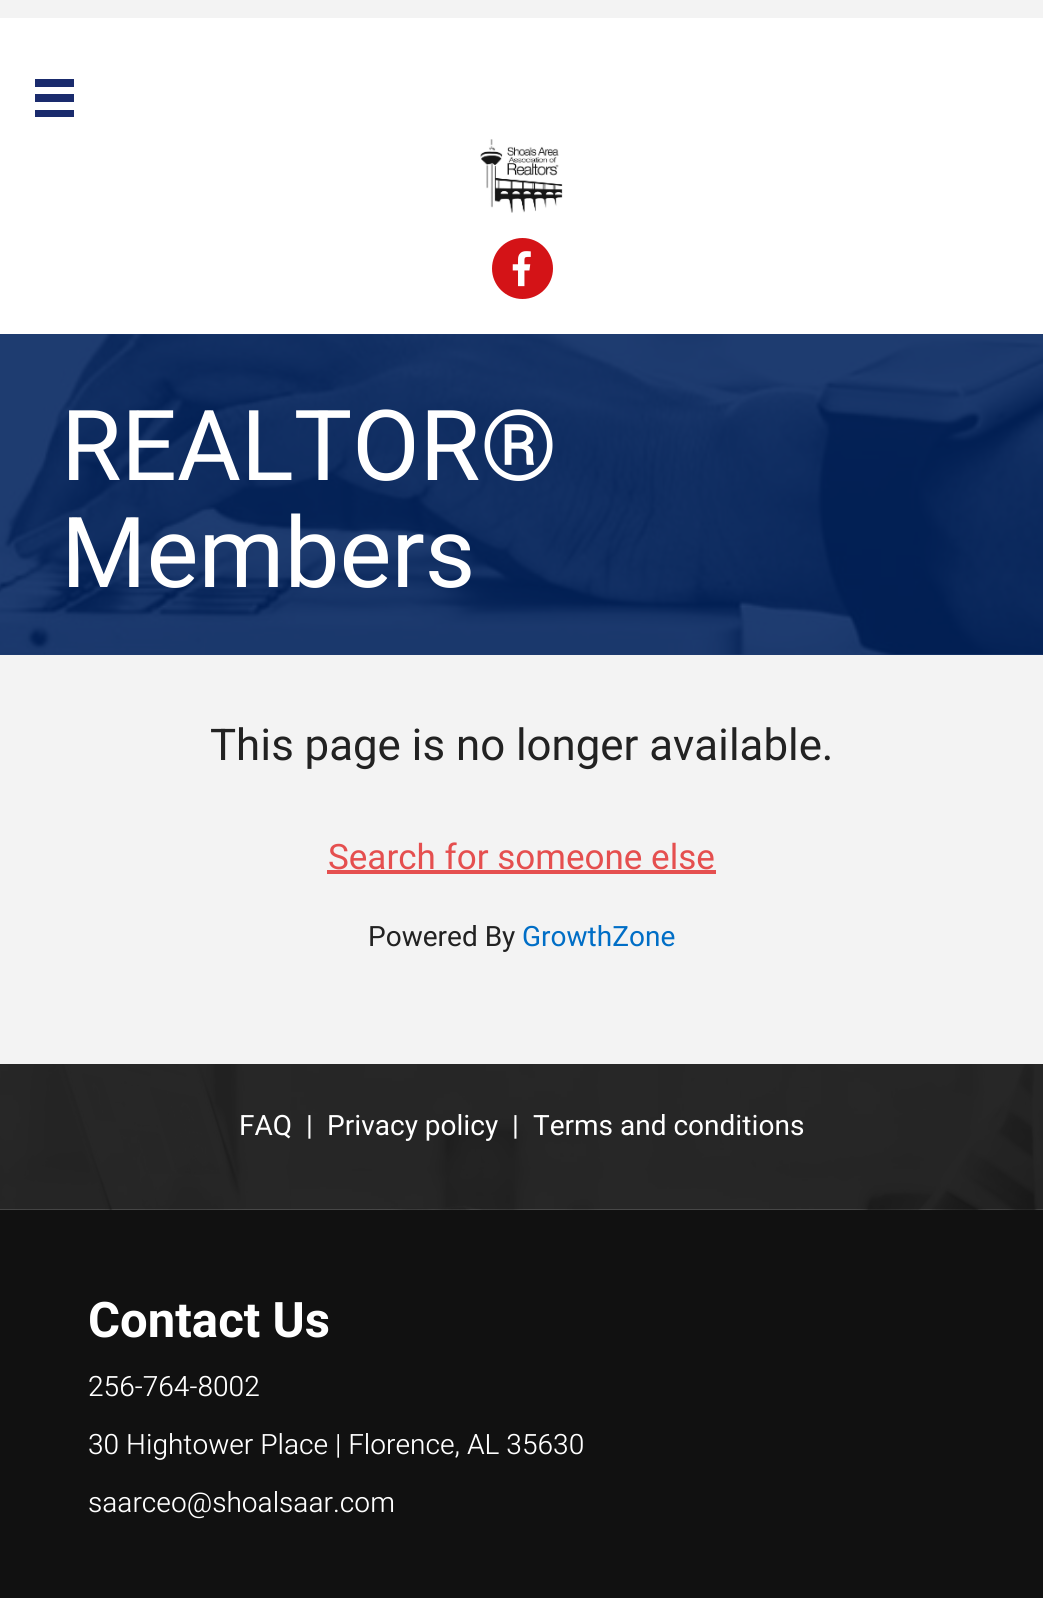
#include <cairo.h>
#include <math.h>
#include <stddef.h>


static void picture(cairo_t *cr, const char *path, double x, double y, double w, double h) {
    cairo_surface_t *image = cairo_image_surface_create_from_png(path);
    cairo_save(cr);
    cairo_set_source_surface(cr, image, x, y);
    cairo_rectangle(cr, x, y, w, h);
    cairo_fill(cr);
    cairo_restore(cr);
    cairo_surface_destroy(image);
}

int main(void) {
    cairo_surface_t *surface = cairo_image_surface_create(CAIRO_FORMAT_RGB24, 1043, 1598);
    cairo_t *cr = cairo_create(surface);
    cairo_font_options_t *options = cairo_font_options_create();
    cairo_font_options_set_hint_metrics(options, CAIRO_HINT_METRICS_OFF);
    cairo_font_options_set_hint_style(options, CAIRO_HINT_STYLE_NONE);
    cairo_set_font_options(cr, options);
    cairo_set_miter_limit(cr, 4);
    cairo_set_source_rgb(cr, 0.953, 0.953, 0.953);
    cairo_paint(cr);
    cairo_set_source_rgb(cr, 0.125, 0.239, 0.443);
    cairo_rectangle(cr, 0, 334, 1043, 321);
    cairo_fill(cr);
    cairo_set_source_rgb(cr, 1, 1, 1);
    cairo_rectangle(cr, 0, 18, 1043, 316);
    cairo_fill(cr);
    cairo_set_source_rgb(cr, 0.102, 0.169, 0.427);
    cairo_rectangle(cr, 35, 79, 39, 8);
    cairo_fill(cr);
    cairo_rectangle(cr, 35, 94, 39, 8);
    cairo_fill(cr);
    cairo_rectangle(cr, 35, 110, 39, 7);
    cairo_fill(cr);
    picture(cr, "img1.png", 480, 139, 83, 74);
    cairo_set_source_rgb(cr, 0.831, 0.075, 0.09);
    cairo_arc(cr, 522.5, 268.5, 30.5, 0, 2 * M_PI);
    cairo_fill(cr);
    picture(cr, "img2.png", 512, 251, 19, 36);
    picture(cr, "img3.png", 0, 334, 1043, 321);
    cairo_select_font_face(cr, "Heebo", CAIRO_FONT_SLANT_NORMAL, CAIRO_FONT_WEIGHT_NORMAL);
    cairo_set_font_size(cr, 98);
    cairo_set_source_rgb(cr, 1, 1, 1);
    cairo_move_to(cr, 61, 480);
    cairo_show_text(cr, "REALTOR®");
    cairo_move_to(cr, 61, 587);
    cairo_show_text(cr, "Members");
    cairo_set_font_size(cr, 43.75);
    cairo_set_source_rgb(cr, 0.133, 0.133, 0.133);
    cairo_move_to(cr, 210, 760);
    cairo_show_text(cr, "This page is no longer available.");
    cairo_set_font_size(cr, 35);
    cairo_set_source_rgb(cr, 0.898, 0.31, 0.31);
    cairo_move_to(cr, 328, 869);
    cairo_show_text(cr, "Search for someone else");
    cairo_rectangle(cr, 327, 870, 389, 4);
    cairo_fill(cr);
    cairo_set_font_size(cr, 28);
    cairo_set_source_rgb(cr, 0.133, 0.133, 0.133);
    cairo_move_to(cr, 368, 946);
    cairo_show_text(cr, "Powered By");
    cairo_set_source_rgb(cr, 0, 0.431, 0.776);
    cairo_move_to(cr, 522, 946);
    cairo_show_text(cr, "GrowthZone");
    cairo_set_source_rgb(cr, 0.067, 0.067, 0.067);
    cairo_rectangle(cr, 0, 1209, 1043, 389);
    cairo_fill(cr);
    picture(cr, "img4.png", 0, 1064, 1043, 146);
    cairo_set_source_rgb(cr, 1, 1, 1);
    cairo_move_to(cr, 239, 1135);
    cairo_show_text(cr, "FAQ");
    cairo_move_to(cr, 306, 1135);
    cairo_show_text(cr, "|");
    cairo_move_to(cr, 327, 1135);
    cairo_show_text(cr, "Privacy policy");
    cairo_move_to(cr, 512, 1135);
    cairo_show_text(cr, "|");
    cairo_move_to(cr, 533, 1135);
    cairo_show_text(cr, "Terms and conditions");
    cairo_select_font_face(cr, "Heebo", CAIRO_FONT_SLANT_NORMAL, CAIRO_FONT_WEIGHT_BOLD);
    cairo_set_font_size(cr, 49);
    cairo_move_to(cr, 88, 1337);
    cairo_show_text(cr, "Contact Us");
    cairo_select_font_face(cr, "Heebo Light", CAIRO_FONT_SLANT_NORMAL, CAIRO_FONT_WEIGHT_NORMAL);
    cairo_set_font_size(cr, 28);
    cairo_move_to(cr, 88, 1396);
    cairo_show_text(cr, "256-764-8002");
    cairo_move_to(cr, 88, 1454);
    cairo_show_text(cr, "30 Hightower Place | Florence, AL 35630");
    cairo_move_to(cr, 88, 1512);
    cairo_show_text(cr, "saarceo@shoalsaar.com");
    cairo_surface_write_to_png(surface, "page.png");
    cairo_font_options_destroy(options);
    cairo_destroy(cr);
    cairo_surface_destroy(surface);
    return 0;
}
